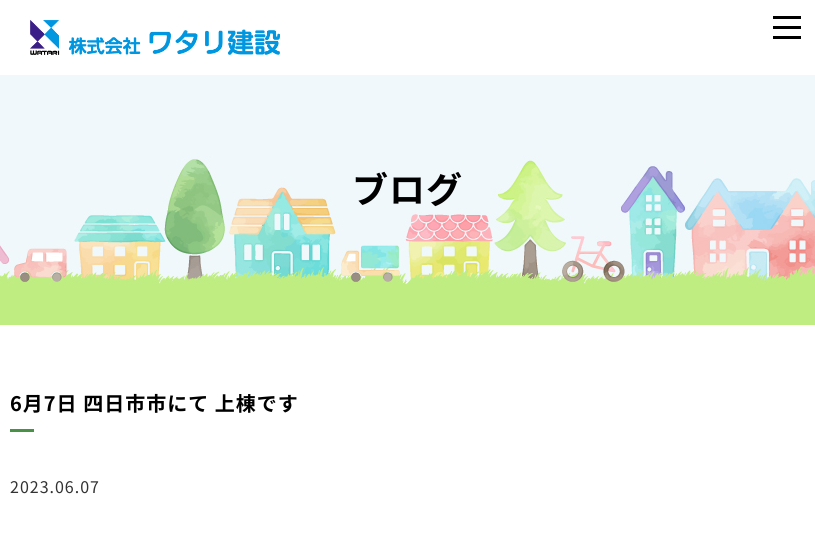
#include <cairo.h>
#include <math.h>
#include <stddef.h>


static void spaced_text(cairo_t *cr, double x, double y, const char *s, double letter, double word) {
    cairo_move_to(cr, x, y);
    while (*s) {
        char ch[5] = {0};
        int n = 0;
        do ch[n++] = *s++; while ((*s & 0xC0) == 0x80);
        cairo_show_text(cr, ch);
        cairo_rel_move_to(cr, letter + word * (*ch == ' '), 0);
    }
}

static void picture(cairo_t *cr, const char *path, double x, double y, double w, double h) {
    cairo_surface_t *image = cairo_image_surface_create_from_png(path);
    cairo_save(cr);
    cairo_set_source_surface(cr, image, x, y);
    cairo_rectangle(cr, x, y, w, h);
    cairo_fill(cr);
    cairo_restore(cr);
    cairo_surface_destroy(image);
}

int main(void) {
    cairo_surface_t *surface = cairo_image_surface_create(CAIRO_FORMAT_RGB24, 815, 557);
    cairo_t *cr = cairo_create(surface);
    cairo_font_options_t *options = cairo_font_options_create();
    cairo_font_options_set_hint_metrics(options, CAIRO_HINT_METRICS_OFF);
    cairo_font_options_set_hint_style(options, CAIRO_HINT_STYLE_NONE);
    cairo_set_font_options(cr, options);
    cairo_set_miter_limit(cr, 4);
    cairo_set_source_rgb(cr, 1, 1, 1);
    cairo_paint(cr);
    picture(cr, "img1.png", 30, 20, 250, 35);
    cairo_set_source_rgb(cr, 0, 0, 0);
    cairo_rectangle(cr, 773, 16, 28, 3);
    cairo_fill(cr);
    cairo_rectangle(cr, 773, 26, 28, 3);
    cairo_fill(cr);
    cairo_rectangle(cr, 773, 36, 28, 3);
    cairo_fill(cr);
    picture(cr, "img2.png", 0, 75, 815, 250);
    cairo_select_font_face(cr, "Noto Sans JP", CAIRO_FONT_SLANT_NORMAL, CAIRO_FONT_WEIGHT_BOLD);
    cairo_set_font_size(cr, 36);
    spaced_text(cr, 352, 203, "ブログ", 1, 0);
    cairo_set_font_size(cr, 20);
    spaced_text(cr, 10, 411, "6月7日 四日市市にて 上棟です", 1, 0);
    cairo_set_source_rgb(cr, 0.278, 0.573, 0.271);
    cairo_rectangle(cr, 10, 429, 24, 3);
    cairo_fill(cr);
    cairo_select_font_face(cr, "Noto Sans JP", CAIRO_FONT_SLANT_NORMAL, CAIRO_FONT_WEIGHT_NORMAL);
    cairo_set_font_size(cr, 16);
    cairo_set_source_rgb(cr, 0.2, 0.2, 0.2);
    spaced_text(cr, 10, 493, "2023.06.07", 1, 0);
    cairo_surface_write_to_png(surface, "page.png");
    cairo_font_options_destroy(options);
    cairo_destroy(cr);
    cairo_surface_destroy(surface);
    return 0;
}
